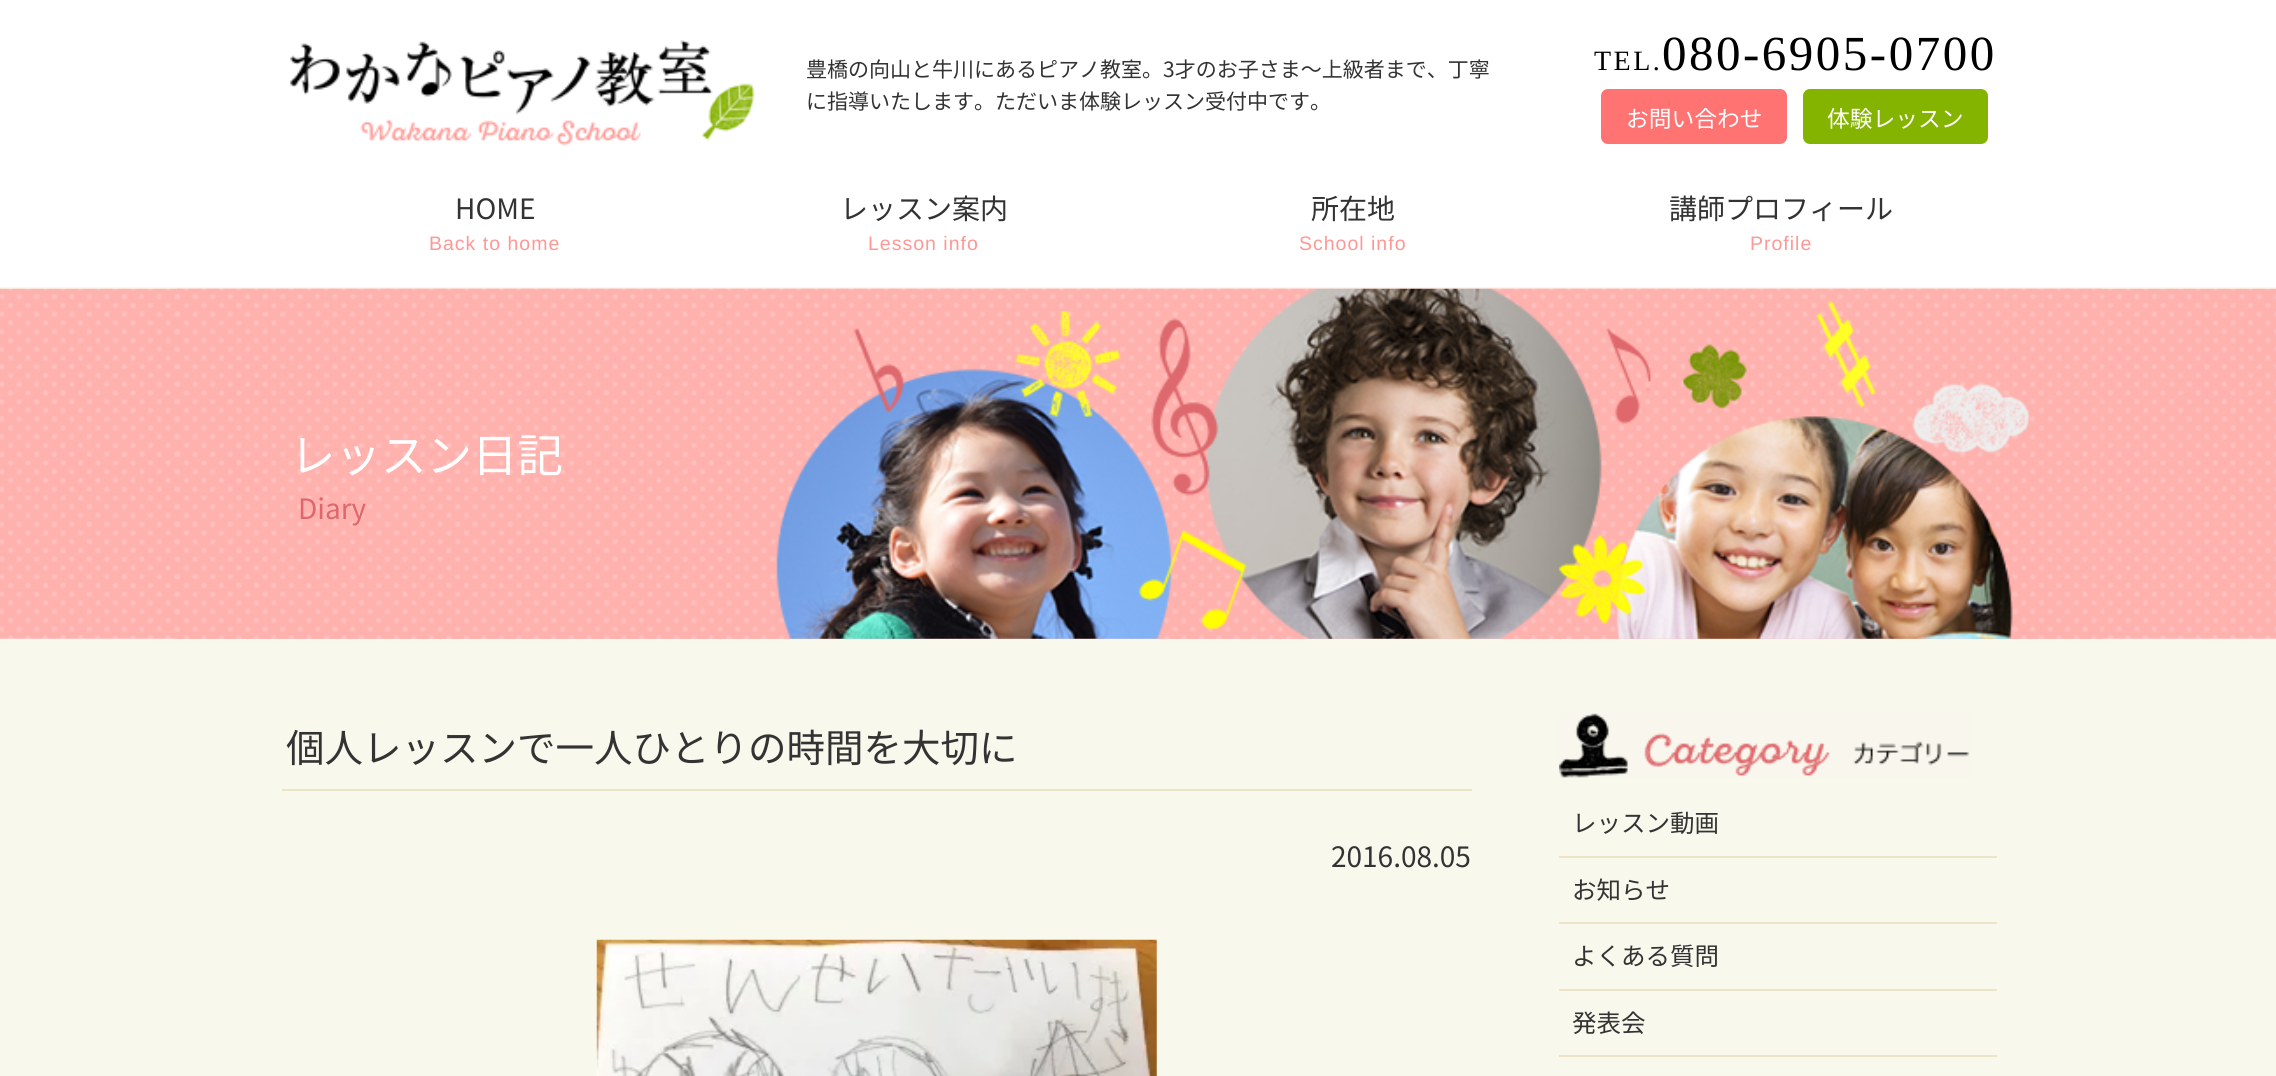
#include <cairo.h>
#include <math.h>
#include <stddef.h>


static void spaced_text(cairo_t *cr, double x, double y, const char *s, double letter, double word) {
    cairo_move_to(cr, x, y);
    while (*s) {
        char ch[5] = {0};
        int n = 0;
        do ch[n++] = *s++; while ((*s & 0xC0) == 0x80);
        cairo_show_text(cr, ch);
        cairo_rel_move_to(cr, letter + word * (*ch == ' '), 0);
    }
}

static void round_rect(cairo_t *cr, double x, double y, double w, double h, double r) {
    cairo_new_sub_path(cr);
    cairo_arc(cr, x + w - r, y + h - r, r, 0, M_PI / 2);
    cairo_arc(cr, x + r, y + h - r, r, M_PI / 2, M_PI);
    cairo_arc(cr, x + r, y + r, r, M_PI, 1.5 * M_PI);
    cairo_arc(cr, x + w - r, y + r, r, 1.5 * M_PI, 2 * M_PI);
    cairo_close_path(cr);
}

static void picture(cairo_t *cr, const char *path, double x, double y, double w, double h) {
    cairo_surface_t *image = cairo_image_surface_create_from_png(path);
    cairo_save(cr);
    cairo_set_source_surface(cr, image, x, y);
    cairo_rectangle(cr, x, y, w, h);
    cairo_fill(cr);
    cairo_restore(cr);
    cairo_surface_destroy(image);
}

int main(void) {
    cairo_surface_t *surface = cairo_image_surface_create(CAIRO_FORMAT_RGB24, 2276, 1076);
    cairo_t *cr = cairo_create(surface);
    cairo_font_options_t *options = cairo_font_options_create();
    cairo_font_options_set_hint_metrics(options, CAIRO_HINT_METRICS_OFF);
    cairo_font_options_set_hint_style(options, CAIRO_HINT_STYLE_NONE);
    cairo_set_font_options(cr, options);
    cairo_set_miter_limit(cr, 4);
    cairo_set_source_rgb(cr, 0.976, 0.969, 0.929);
    cairo_paint(cr);
    cairo_set_source_rgb(cr, 1, 1, 1);
    cairo_rectangle(cr, 0, 0, 2276, 287);
    cairo_fill(cr);
    picture(cr, "img1.png", 290, 40, 465, 106);
    cairo_select_font_face(cr, "Noto Sans JP", CAIRO_FONT_SLANT_NORMAL, CAIRO_FONT_WEIGHT_NORMAL);
    cairo_set_font_size(cr, 21);
    cairo_set_source_rgb(cr, 0.2, 0.2, 0.2);
    cairo_move_to(cr, 806, 77);
    cairo_show_text(cr, "豊橋の向山と牛川にあるピアノ教室。3才のお子さま～上級者まで、丁寧");
    cairo_move_to(cr, 806, 109);
    cairo_show_text(cr, "に指導いたします。ただいま体験レッスン受付中です。");
    cairo_select_font_face(cr, "Liberation Serif", CAIRO_FONT_SLANT_NORMAL, CAIRO_FONT_WEIGHT_NORMAL);
    cairo_set_font_size(cr, 28);
    cairo_set_source_rgb(cr, 0, 0, 0);
    spaced_text(cr, 1594, 70, "TEL.", 2.5, 0);
    cairo_set_font_size(cr, 49);
    spaced_text(cr, 1662, 70, "080-6905-0700", 2.5, 0);
    cairo_set_source_rgb(cr, 1, 0.451, 0.451);
    round_rect(cr, 1601, 89, 186, 55, 7);
    cairo_fill(cr);
    cairo_select_font_face(cr, "Noto Sans JP", CAIRO_FONT_SLANT_NORMAL, CAIRO_FONT_WEIGHT_NORMAL);
    cairo_set_font_size(cr, 22.75);
    cairo_set_source_rgb(cr, 1, 1, 1);
    cairo_move_to(cr, 1626, 127);
    cairo_show_text(cr, "お問い合わせ");
    cairo_set_source_rgb(cr, 0.518, 0.706, 0);
    round_rect(cr, 1803, 89, 185, 55, 7);
    cairo_fill(cr);
    cairo_set_source_rgb(cr, 1, 1, 1);
    cairo_move_to(cr, 1827, 127);
    cairo_show_text(cr, "体験レッスン");
    cairo_set_font_size(cr, 28);
    cairo_set_source_rgb(cr, 0.2, 0.2, 0.2);
    cairo_move_to(cr, 455, 219);
    cairo_show_text(cr, "HOME");
    cairo_select_font_face(cr, "Liberation Sans", CAIRO_FONT_SLANT_NORMAL, CAIRO_FONT_WEIGHT_NORMAL);
    cairo_set_font_size(cr, 19.5);
    cairo_set_source_rgb(cr, 1, 0.592, 0.58);
    spaced_text(cr, 429, 250, "Back to home", 1, 0);
    cairo_select_font_face(cr, "Noto Sans JP", CAIRO_FONT_SLANT_NORMAL, CAIRO_FONT_WEIGHT_NORMAL);
    cairo_set_font_size(cr, 28);
    cairo_set_source_rgb(cr, 0.2, 0.2, 0.2);
    cairo_move_to(cr, 840, 219);
    cairo_show_text(cr, "レッスン案内");
    cairo_select_font_face(cr, "Liberation Sans", CAIRO_FONT_SLANT_NORMAL, CAIRO_FONT_WEIGHT_NORMAL);
    cairo_set_font_size(cr, 19.5);
    cairo_set_source_rgb(cr, 1, 0.592, 0.58);
    spaced_text(cr, 868, 250, "Lesson info", 1, 0);
    cairo_select_font_face(cr, "Noto Sans JP", CAIRO_FONT_SLANT_NORMAL, CAIRO_FONT_WEIGHT_NORMAL);
    cairo_set_font_size(cr, 28);
    cairo_set_source_rgb(cr, 0.2, 0.2, 0.2);
    cairo_move_to(cr, 1311, 219);
    cairo_show_text(cr, "所在地");
    cairo_select_font_face(cr, "Liberation Sans", CAIRO_FONT_SLANT_NORMAL, CAIRO_FONT_WEIGHT_NORMAL);
    cairo_set_font_size(cr, 19.5);
    cairo_set_source_rgb(cr, 1, 0.592, 0.58);
    spaced_text(cr, 1299, 250, "School info", 1, 0);
    cairo_select_font_face(cr, "Noto Sans JP", CAIRO_FONT_SLANT_NORMAL, CAIRO_FONT_WEIGHT_NORMAL);
    cairo_set_font_size(cr, 28);
    cairo_set_source_rgb(cr, 0.2, 0.2, 0.2);
    cairo_move_to(cr, 1669, 219);
    cairo_show_text(cr, "講師プロフィール");
    cairo_select_font_face(cr, "Liberation Sans", CAIRO_FONT_SLANT_NORMAL, CAIRO_FONT_WEIGHT_NORMAL);
    cairo_set_font_size(cr, 19.5);
    cairo_set_source_rgb(cr, 1, 0.592, 0.58);
    spaced_text(cr, 1750, 250, "Profile", 1, 0);
    picture(cr, "img2.png", 0, 288, 2276, 351);
    picture(cr, "img3.png", 177, 288, 1925, 351);
    cairo_select_font_face(cr, "Noto Sans JP", CAIRO_FONT_SLANT_NORMAL, CAIRO_FONT_WEIGHT_NORMAL);
    cairo_set_font_size(cr, 45.5);
    cairo_set_source_rgb(cr, 1, 1, 1);
    cairo_move_to(cr, 290, 472);
    cairo_show_text(cr, "レッスン日記");
    cairo_set_font_size(cr, 28);
    cairo_set_source_rgb(cr, 0.875, 0.4, 0.424);
    cairo_move_to(cr, 298, 519);
    cairo_show_text(cr, "Diary");
    cairo_set_source_rgb(cr, 0.925, 0.898, 0.773);
    cairo_rectangle(cr, 282, 789, 1190, 2);
    cairo_fill(cr);
    cairo_set_font_size(cr, 38.5);
    cairo_set_source_rgb(cr, 0.2, 0.2, 0.2);
    cairo_move_to(cr, 286, 762);
    cairo_show_text(cr, "個人レッスンで一人ひとりの時間を大切に");
    cairo_set_font_size(cr, 28);
    cairo_move_to(cr, 1331, 867);
    cairo_show_text(cr, "2016.08.05");
    picture(cr, "img4.png", 596, 939, 561, 137);
    picture(cr, "img5.png", 1559, 713, 411, 65);
    cairo_set_source_rgb(cr, 0.925, 0.898, 0.773);
    cairo_rectangle(cr, 1559, 856, 438, 2);
    cairo_fill(cr);
    cairo_set_font_size(cr, 24.5);
    cairo_set_source_rgb(cr, 0.2, 0.2, 0.2);
    cairo_move_to(cr, 1572, 832);
    cairo_show_text(cr, "レッスン動画");
    cairo_set_source_rgb(cr, 0.925, 0.898, 0.773);
    cairo_rectangle(cr, 1559, 922, 438, 2);
    cairo_fill(cr);
    cairo_set_source_rgb(cr, 0.2, 0.2, 0.2);
    cairo_move_to(cr, 1572, 899);
    cairo_show_text(cr, "お知らせ");
    cairo_set_source_rgb(cr, 0.925, 0.898, 0.773);
    cairo_rectangle(cr, 1559, 989, 438, 2);
    cairo_fill(cr);
    cairo_set_source_rgb(cr, 0.2, 0.2, 0.2);
    cairo_move_to(cr, 1572, 965);
    cairo_show_text(cr, "よくある質問");
    cairo_set_source_rgb(cr, 0.925, 0.898, 0.773);
    cairo_rectangle(cr, 1559, 1055, 438, 2);
    cairo_fill(cr);
    cairo_set_source_rgb(cr, 0.2, 0.2, 0.2);
    cairo_move_to(cr, 1572, 1032);
    cairo_show_text(cr, "発表会");
    cairo_surface_write_to_png(surface, "page.png");
    cairo_font_options_destroy(options);
    cairo_destroy(cr);
    cairo_surface_destroy(surface);
    return 0;
}
